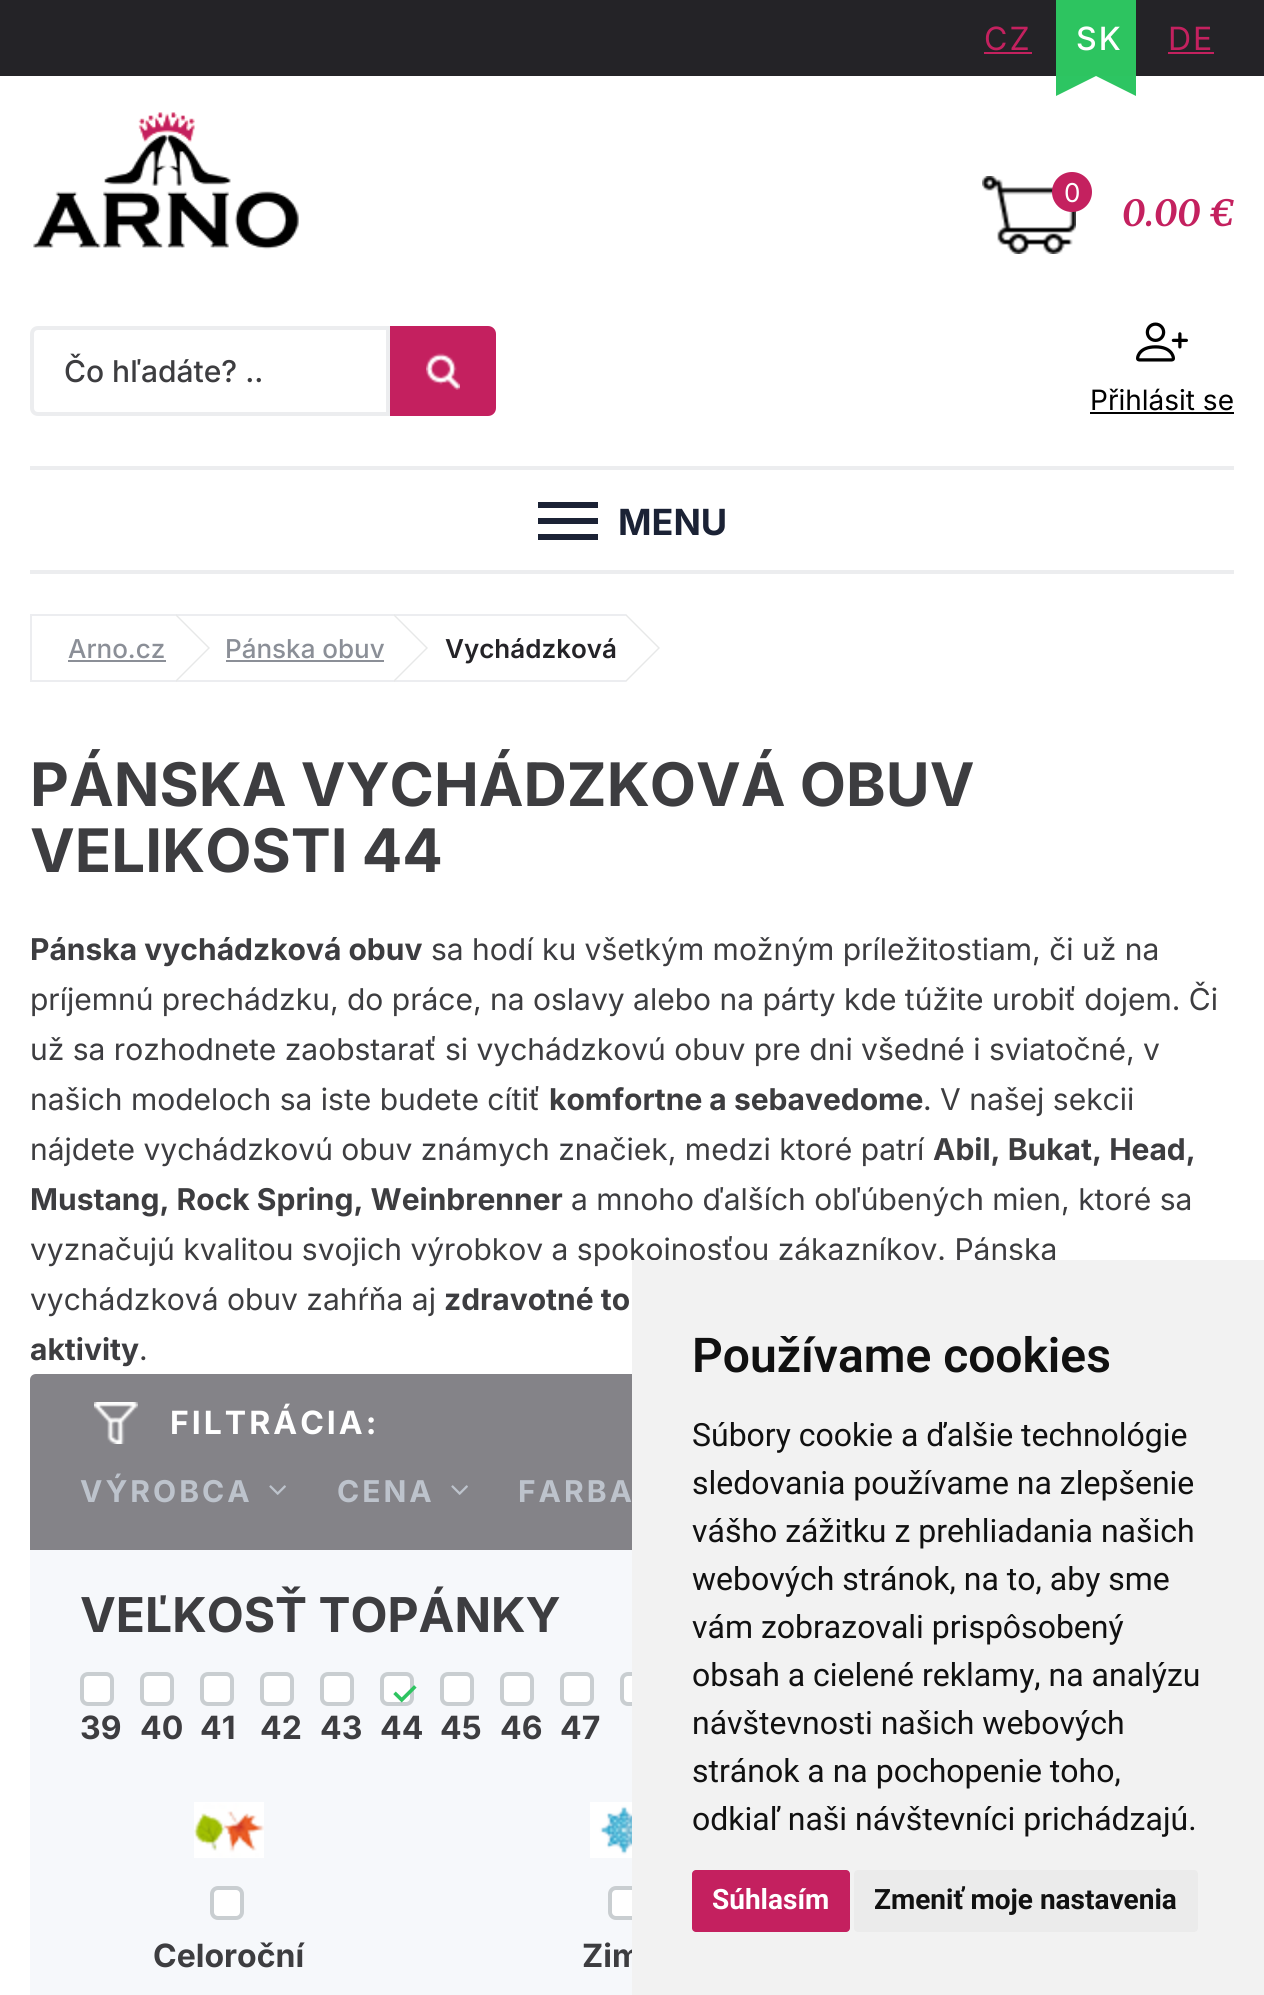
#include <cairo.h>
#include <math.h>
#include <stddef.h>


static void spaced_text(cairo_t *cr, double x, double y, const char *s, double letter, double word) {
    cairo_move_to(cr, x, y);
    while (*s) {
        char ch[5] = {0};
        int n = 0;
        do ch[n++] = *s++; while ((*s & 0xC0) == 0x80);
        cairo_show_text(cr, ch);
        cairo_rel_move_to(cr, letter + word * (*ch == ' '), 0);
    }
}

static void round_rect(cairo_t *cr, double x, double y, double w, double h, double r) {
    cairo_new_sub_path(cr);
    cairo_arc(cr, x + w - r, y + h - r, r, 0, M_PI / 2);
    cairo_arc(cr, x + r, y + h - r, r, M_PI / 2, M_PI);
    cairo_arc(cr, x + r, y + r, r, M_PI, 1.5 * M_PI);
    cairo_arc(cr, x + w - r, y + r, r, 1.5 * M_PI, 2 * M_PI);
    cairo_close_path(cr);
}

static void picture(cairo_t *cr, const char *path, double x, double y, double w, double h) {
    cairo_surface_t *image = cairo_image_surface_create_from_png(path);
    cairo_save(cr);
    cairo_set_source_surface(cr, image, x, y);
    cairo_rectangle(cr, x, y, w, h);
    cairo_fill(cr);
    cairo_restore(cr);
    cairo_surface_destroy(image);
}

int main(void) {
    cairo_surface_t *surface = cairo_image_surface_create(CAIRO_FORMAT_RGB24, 1264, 1995);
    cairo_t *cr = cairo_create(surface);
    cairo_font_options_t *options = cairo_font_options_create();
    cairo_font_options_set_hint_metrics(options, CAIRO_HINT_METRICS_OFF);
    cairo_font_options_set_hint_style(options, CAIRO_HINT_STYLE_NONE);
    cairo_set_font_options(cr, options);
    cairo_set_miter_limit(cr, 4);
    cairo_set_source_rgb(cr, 1, 1, 1);
    cairo_paint(cr);
    cairo_set_source_rgb(cr, 0.141, 0.137, 0.153);
    cairo_rectangle(cr, 0, 0, 1264, 76);
    cairo_fill(cr);
    cairo_select_font_face(cr, "Inter", CAIRO_FONT_SLANT_NORMAL, CAIRO_FONT_WEIGHT_NORMAL);
    cairo_set_font_size(cr, 32);
    cairo_set_source_rgb(cr, 0.769, 0.129, 0.373);
    spaced_text(cr, 984, 50, "CZ", 2, 0);
    cairo_rectangle(cr, 984, 52, 48, 2);
    cairo_fill(cr);
    cairo_set_source_rgb(cr, 0.176, 0.769, 0.376);
    cairo_rectangle(cr, 1056, 0, 80, 76);
    cairo_fill(cr);
    cairo_select_font_face(cr, "Inter Medium", CAIRO_FONT_SLANT_NORMAL, CAIRO_FONT_WEIGHT_NORMAL);
    cairo_set_source_rgb(cr, 1, 1, 1);
    spaced_text(cr, 1076, 50, "SK", 2, 0);
    cairo_set_source_rgb(cr, 0.176, 0.773, 0.384);
    cairo_new_path(cr);
    cairo_move_to(cr, 1056, 76);
    cairo_line_to(cr, 1096, 76);
    cairo_line_to(cr, 1056, 96);
    cairo_close_path(cr);
    cairo_fill(cr);
    cairo_new_path(cr);
    cairo_move_to(cr, 1136, 76);
    cairo_line_to(cr, 1136, 96);
    cairo_line_to(cr, 1096, 76);
    cairo_close_path(cr);
    cairo_fill(cr);
    cairo_select_font_face(cr, "Inter", CAIRO_FONT_SLANT_NORMAL, CAIRO_FONT_WEIGHT_NORMAL);
    cairo_set_source_rgb(cr, 0.769, 0.129, 0.373);
    spaced_text(cr, 1168, 50, "DE", 2, 0);
    cairo_rectangle(cr, 1168, 52, 46, 2);
    cairo_fill(cr);
    picture(cr, "img1.png", 33, 112, 266, 138);
    picture(cr, "img2.png", 982, 176, 94, 78);
    cairo_arc(cr, 1072, 192, 20, 0, 2 * M_PI);
    cairo_fill(cr);
    cairo_set_font_size(cr, 26);
    cairo_set_source_rgb(cr, 1, 1, 1);
    cairo_move_to(cr, 1064, 202);
    cairo_show_text(cr, "0");
    cairo_select_font_face(cr, "Merriweather", CAIRO_FONT_SLANT_ITALIC, CAIRO_FONT_WEIGHT_BOLD);
    cairo_set_font_size(cr, 36);
    cairo_set_source_rgb(cr, 0.769, 0.129, 0.373);
    cairo_move_to(cr, 1122, 226);
    cairo_show_text(cr, "0.00 €");
    cairo_new_path(cr);
    cairo_move_to(cr, 38, 328);
    cairo_line_to(cr, 388, 328);
    cairo_line_to(cr, 388, 414);
    cairo_line_to(cr, 38, 414);
    cairo_curve_to(cr, 34.5, 414, 32, 411.5, 32, 408);
    cairo_line_to(cr, 32, 334);
    cairo_curve_to(cr, 32, 330.5, 34.5, 328, 38, 328);
    cairo_close_path(cr);
    cairo_set_source_rgb(cr, 0.925, 0.929, 0.937);
    cairo_set_line_width(cr, 4);
    cairo_stroke(cr);
    cairo_select_font_face(cr, "Inter Medium", CAIRO_FONT_SLANT_NORMAL, CAIRO_FONT_WEIGHT_NORMAL);
    cairo_set_font_size(cr, 30);
    cairo_set_source_rgb(cr, 0.239, 0.239, 0.251);
    cairo_move_to(cr, 64, 382);
    cairo_show_text(cr, "Čo hľadáte? ..");
    cairo_set_source_rgb(cr, 0.769, 0.125, 0.373);
    cairo_new_path(cr);
    cairo_move_to(cr, 390, 326);
    cairo_line_to(cr, 488, 326);
    cairo_curve_to(cr, 492.5, 326, 496, 329.5, 496, 334);
    cairo_line_to(cr, 496, 408);
    cairo_curve_to(cr, 496, 412.5, 492.5, 416, 488, 416);
    cairo_line_to(cr, 390, 416);
    cairo_close_path(cr);
    cairo_fill(cr);
    picture(cr, "img3.png", 426, 353, 34, 37);
    picture(cr, "img4.png", 1136, 322, 52, 40);
    cairo_select_font_face(cr, "Inter", CAIRO_FONT_SLANT_NORMAL, CAIRO_FONT_WEIGHT_NORMAL);
    cairo_set_font_size(cr, 28);
    cairo_set_source_rgb(cr, 0, 0, 0);
    cairo_move_to(cr, 1090, 410);
    cairo_show_text(cr, "Přihlásit se");
    cairo_rectangle(cr, 1090, 412, 144, 2);
    cairo_fill(cr);
    cairo_set_source_rgb(cr, 0.925, 0.929, 0.937);
    cairo_rectangle(cr, 30, 466, 1204, 4);
    cairo_fill(cr);
    cairo_rectangle(cr, 30, 570, 1204, 4);
    cairo_fill(cr);
    cairo_set_source_rgb(cr, 0.106, 0.133, 0.208);
    cairo_rectangle(cr, 538, 502, 60, 6);
    cairo_fill(cr);
    cairo_rectangle(cr, 538, 518, 60, 6);
    cairo_fill(cr);
    cairo_select_font_face(cr, "Inter", CAIRO_FONT_SLANT_NORMAL, CAIRO_FONT_WEIGHT_BOLD);
    cairo_set_font_size(cr, 36);
    cairo_move_to(cr, 618, 535);
    cairo_show_text(cr, "MENU");
    cairo_rectangle(cr, 538, 534, 60, 6);
    cairo_fill(cr);
    cairo_set_source_rgb(cr, 0.925, 0.929, 0.941);
    cairo_rectangle(cr, 30, 614, 596, 2);
    cairo_fill(cr);
    cairo_rectangle(cr, 30, 680, 596, 2);
    cairo_fill(cr);
    cairo_rectangle(cr, 30, 614, 2, 68);
    cairo_fill(cr);
    cairo_set_source_rgb(cr, 0.906, 0.91, 0.91);
    cairo_new_path(cr);
    cairo_move_to(cr, 176, 682);
    cairo_line_to(cr, 176, 614);
    cairo_line_to(cr, 210, 648);
    cairo_close_path(cr);
    cairo_fill(cr);
    cairo_select_font_face(cr, "Inter Medium", CAIRO_FONT_SLANT_NORMAL, CAIRO_FONT_WEIGHT_NORMAL);
    cairo_set_font_size(cr, 26);
    cairo_set_source_rgb(cr, 0.545, 0.561, 0.592);
    cairo_move_to(cr, 68, 658);
    cairo_show_text(cr, "Arno.cz");
    cairo_rectangle(cr, 68, 660, 98, 2);
    cairo_fill(cr);
    cairo_set_source_rgb(cr, 1, 1, 1);
    cairo_new_path(cr);
    cairo_move_to(cr, 176, 680);
    cairo_line_to(cr, 176, 616);
    cairo_line_to(cr, 208, 648);
    cairo_close_path(cr);
    cairo_fill(cr);
    cairo_set_source_rgb(cr, 0.906, 0.91, 0.91);
    cairo_new_path(cr);
    cairo_move_to(cr, 394, 682);
    cairo_line_to(cr, 394, 614);
    cairo_line_to(cr, 428, 648);
    cairo_close_path(cr);
    cairo_fill(cr);
    cairo_set_source_rgb(cr, 0.545, 0.561, 0.592);
    cairo_move_to(cr, 225, 658);
    cairo_show_text(cr, "Pánska obuv");
    cairo_rectangle(cr, 226, 660, 158, 2);
    cairo_fill(cr);
    cairo_set_source_rgb(cr, 1, 1, 1);
    cairo_new_path(cr);
    cairo_move_to(cr, 394, 680);
    cairo_line_to(cr, 394, 616);
    cairo_line_to(cr, 426, 648);
    cairo_close_path(cr);
    cairo_fill(cr);
    cairo_set_source_rgb(cr, 0.906, 0.91, 0.91);
    cairo_new_path(cr);
    cairo_move_to(cr, 626, 682);
    cairo_line_to(cr, 626, 614);
    cairo_line_to(cr, 660, 648);
    cairo_close_path(cr);
    cairo_fill(cr);
    cairo_select_font_face(cr, "Inter SemiBold", CAIRO_FONT_SLANT_NORMAL, CAIRO_FONT_WEIGHT_NORMAL);
    cairo_set_source_rgb(cr, 0.141, 0.137, 0.153);
    cairo_move_to(cr, 445, 658);
    cairo_show_text(cr, "Vychádzková");
    cairo_set_source_rgb(cr, 1, 1, 1);
    cairo_new_path(cr);
    cairo_move_to(cr, 626, 680);
    cairo_line_to(cr, 626, 616);
    cairo_line_to(cr, 658, 648);
    cairo_close_path(cr);
    cairo_fill(cr);
    cairo_select_font_face(cr, "Inter", CAIRO_FONT_SLANT_NORMAL, CAIRO_FONT_WEIGHT_BOLD);
    cairo_set_font_size(cr, 60);
    cairo_set_source_rgb(cr, 0.239, 0.239, 0.251);
    cairo_move_to(cr, 30, 806);
    cairo_show_text(cr, "PÁNSKA VYCHÁDZKOVÁ OBUV");
    cairo_move_to(cr, 30, 872);
    cairo_show_text(cr, "VELIKOSTI 44");
    cairo_set_font_size(cr, 30);
    cairo_move_to(cr, 30, 960);
    cairo_show_text(cr, "Pánska vychádzková obuv");
    cairo_select_font_face(cr, "Inter", CAIRO_FONT_SLANT_NORMAL, CAIRO_FONT_WEIGHT_NORMAL);
    cairo_move_to(cr, 431, 960);
    cairo_show_text(cr, "sa hodí ku všetkým možným príležitostiam, či už na");
    cairo_move_to(cr, 30, 1010);
    cairo_show_text(cr, "príjemnú prechádzku, do práce, na oslavy alebo na párty kde túžite urobiť dojem. Či");
    cairo_move_to(cr, 30, 1060);
    cairo_show_text(cr, "už sa rozhodnete zaobstarať si vychádzkovú obuv pre dni všedné i sviatočné, v");
    cairo_move_to(cr, 30, 1110);
    cairo_show_text(cr, "našich modeloch sa iste budete cítiť");
    cairo_select_font_face(cr, "Inter", CAIRO_FONT_SLANT_NORMAL, CAIRO_FONT_WEIGHT_BOLD);
    cairo_move_to(cr, 549, 1110);
    cairo_show_text(cr, "komfortne a sebavedome");
    cairo_select_font_face(cr, "Inter", CAIRO_FONT_SLANT_NORMAL, CAIRO_FONT_WEIGHT_NORMAL);
    cairo_move_to(cr, 923, 1110);
    cairo_show_text(cr, ". V našej sekcii");
    cairo_move_to(cr, 30, 1160);
    cairo_show_text(cr, "nájdete vychádzkovú obuv známych značiek, medzi ktoré patrí");
    cairo_select_font_face(cr, "Inter", CAIRO_FONT_SLANT_NORMAL, CAIRO_FONT_WEIGHT_BOLD);
    cairo_move_to(cr, 933, 1160);
    cairo_show_text(cr, "Abil, Bukat, Head,");
    cairo_move_to(cr, 30, 1210);
    cairo_show_text(cr, "Mustang, Rock Spring, Weinbrenner");
    cairo_select_font_face(cr, "Inter", CAIRO_FONT_SLANT_NORMAL, CAIRO_FONT_WEIGHT_NORMAL);
    cairo_move_to(cr, 571, 1210);
    cairo_show_text(cr, "a mnoho ďalších obľúbených mien, ktoré sa");
    cairo_move_to(cr, 30, 1260);
    cairo_show_text(cr, "vyznačujú kvalitou svojich výrobkov a spokojnosťou zákazníkov. Pánska");
    cairo_move_to(cr, 30, 1310);
    cairo_show_text(cr, "vychádzková obuv zahŕňa aj");
    cairo_select_font_face(cr, "Inter", CAIRO_FONT_SLANT_NORMAL, CAIRO_FONT_WEIGHT_BOLD);
    cairo_move_to(cr, 444, 1310);
    cairo_show_text(cr, "zdravotné to");
    cairo_move_to(cr, 30, 1360);
    cairo_show_text(cr, "aktivity");
    cairo_select_font_face(cr, "Inter", CAIRO_FONT_SLANT_NORMAL, CAIRO_FONT_WEIGHT_NORMAL);
    cairo_move_to(cr, 139, 1360);
    cairo_show_text(cr, ".");
    cairo_set_source_rgb(cr, 0.961, 0.969, 0.984);
    round_rect(cr, 30, 1374, 1204, 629, 8);
    cairo_fill(cr);
    cairo_set_source_rgb(cr, 0.518, 0.514, 0.533);
    cairo_new_path(cr);
    cairo_move_to(cr, 36, 1374);
    cairo_line_to(cr, 1228, 1374);
    cairo_curve_to(cr, 1231.5, 1374, 1234, 1376.5, 1234, 1380);
    cairo_line_to(cr, 1234, 1550);
    cairo_line_to(cr, 30, 1550);
    cairo_line_to(cr, 30, 1380);
    cairo_curve_to(cr, 30, 1376.5, 32.5, 1374, 36, 1374);
    cairo_close_path(cr);
    cairo_fill(cr);
    picture(cr, "img5.png", 94, 1402, 44, 42);
    cairo_select_font_face(cr, "Inter", CAIRO_FONT_SLANT_NORMAL, CAIRO_FONT_WEIGHT_BOLD);
    cairo_set_font_size(cr, 32);
    cairo_set_source_rgb(cr, 1, 1, 1);
    spaced_text(cr, 170, 1434, "FILTRÁCIA:", 3, 0);
    cairo_set_font_size(cr, 30);
    cairo_set_source_rgb(cr, 0.741, 0.765, 0.8);
    spaced_text(cr, 80, 1502, "VÝROBCA", 3, 0);
    picture(cr, "img6.png", 269, 1485, 17, 10);
    spaced_text(cr, 337, 1502, "CENA", 3, 0);
    picture(cr, "img6.png", 451, 1485, 17, 10);
    spaced_text(cr, 518, 1502, "FARBA", 3, 0);
    cairo_set_font_size(cr, 48);
    cairo_set_source_rgb(cr, 0.239, 0.239, 0.251);
    cairo_move_to(cr, 80, 1632);
    cairo_show_text(cr, "VEĽKOSŤ TOPÁNKY");
    cairo_set_source_rgb(cr, 1, 1, 1);
    round_rect(cr, 82, 1674, 30, 30, 6);
    cairo_fill_preserve(cr);
    cairo_set_source_rgb(cr, 0.788, 0.808, 0.82);
    cairo_stroke(cr);
    cairo_set_font_size(cr, 32);
    cairo_set_source_rgb(cr, 0.239, 0.239, 0.251);
    cairo_move_to(cr, 80, 1739);
    cairo_show_text(cr, "39");
    cairo_set_source_rgb(cr, 1, 1, 1);
    round_rect(cr, 142, 1674, 30, 30, 6);
    cairo_fill_preserve(cr);
    cairo_set_source_rgb(cr, 0.788, 0.808, 0.82);
    cairo_stroke(cr);
    cairo_set_source_rgb(cr, 0.239, 0.239, 0.251);
    cairo_move_to(cr, 140, 1739);
    cairo_show_text(cr, "40");
    cairo_set_source_rgb(cr, 1, 1, 1);
    round_rect(cr, 202, 1674, 30, 30, 6);
    cairo_fill_preserve(cr);
    cairo_set_source_rgb(cr, 0.788, 0.808, 0.82);
    cairo_stroke(cr);
    cairo_set_source_rgb(cr, 0.239, 0.239, 0.251);
    cairo_move_to(cr, 200, 1739);
    cairo_show_text(cr, "41");
    cairo_set_source_rgb(cr, 1, 1, 1);
    round_rect(cr, 262, 1674, 30, 30, 6);
    cairo_fill_preserve(cr);
    cairo_set_source_rgb(cr, 0.788, 0.808, 0.82);
    cairo_stroke(cr);
    cairo_set_source_rgb(cr, 0.239, 0.239, 0.251);
    cairo_move_to(cr, 260, 1739);
    cairo_show_text(cr, "42");
    cairo_set_source_rgb(cr, 1, 1, 1);
    round_rect(cr, 322, 1674, 30, 30, 6);
    cairo_fill_preserve(cr);
    cairo_set_source_rgb(cr, 0.788, 0.808, 0.82);
    cairo_stroke(cr);
    cairo_set_source_rgb(cr, 0.239, 0.239, 0.251);
    cairo_move_to(cr, 320, 1739);
    cairo_show_text(cr, "43");
    cairo_set_source_rgb(cr, 1, 1, 1);
    round_rect(cr, 382, 1674, 30, 30, 6);
    cairo_fill_preserve(cr);
    cairo_set_source_rgb(cr, 0.788, 0.808, 0.82);
    cairo_stroke(cr);
    cairo_select_font_face(cr, "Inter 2", CAIRO_FONT_SLANT_NORMAL, CAIRO_FONT_WEIGHT_BOLD);
    cairo_set_source_rgb(cr, 0.176, 0.769, 0.376);
    cairo_move_to(cr, 390, 1705);
    cairo_show_text(cr, "✓");
    cairo_select_font_face(cr, "Inter", CAIRO_FONT_SLANT_NORMAL, CAIRO_FONT_WEIGHT_BOLD);
    cairo_set_source_rgb(cr, 0.239, 0.239, 0.251);
    cairo_move_to(cr, 380, 1739);
    cairo_show_text(cr, "44");
    cairo_set_source_rgb(cr, 1, 1, 1);
    round_rect(cr, 442, 1674, 30, 30, 6);
    cairo_fill_preserve(cr);
    cairo_set_source_rgb(cr, 0.788, 0.808, 0.82);
    cairo_stroke(cr);
    cairo_set_source_rgb(cr, 0.239, 0.239, 0.251);
    cairo_move_to(cr, 440, 1739);
    cairo_show_text(cr, "45");
    cairo_set_source_rgb(cr, 1, 1, 1);
    round_rect(cr, 502, 1674, 30, 30, 6);
    cairo_fill_preserve(cr);
    cairo_set_source_rgb(cr, 0.788, 0.808, 0.82);
    cairo_stroke(cr);
    cairo_set_source_rgb(cr, 0.239, 0.239, 0.251);
    cairo_move_to(cr, 500, 1739);
    cairo_show_text(cr, "46");
    cairo_set_source_rgb(cr, 1, 1, 1);
    round_rect(cr, 562, 1674, 30, 30, 6);
    cairo_fill_preserve(cr);
    cairo_set_source_rgb(cr, 0.788, 0.808, 0.82);
    cairo_stroke(cr);
    cairo_set_source_rgb(cr, 0.239, 0.239, 0.251);
    cairo_move_to(cr, 560, 1739);
    cairo_show_text(cr, "47");
    cairo_set_source_rgb(cr, 1, 1, 1);
    round_rect(cr, 622, 1674, 30, 30, 6);
    cairo_fill_preserve(cr);
    cairo_set_source_rgb(cr, 0.788, 0.808, 0.82);
    cairo_stroke(cr);
    picture(cr, "img7.png", 194, 1802, 70, 56);
    cairo_set_source_rgb(cr, 1, 1, 1);
    round_rect(cr, 212, 1888, 30, 30, 6);
    cairo_fill_preserve(cr);
    cairo_set_source_rgb(cr, 0.788, 0.808, 0.82);
    cairo_stroke(cr);
    cairo_set_source_rgb(cr, 0.239, 0.239, 0.251);
    cairo_move_to(cr, 153, 1967);
    cairo_show_text(cr, "Celoroční");
    picture(cr, "img8.png", 590, 1802, 42, 56);
    cairo_set_source_rgb(cr, 1, 1, 1);
    round_rect(cr, 610, 1888, 30, 30, 6);
    cairo_fill_preserve(cr);
    cairo_set_source_rgb(cr, 0.788, 0.808, 0.82);
    cairo_stroke(cr);
    cairo_set_source_rgb(cr, 0.239, 0.239, 0.251);
    cairo_move_to(cr, 582, 1967);
    cairo_show_text(cr, "Zim");
    cairo_set_source_rgb(cr, 0.949, 0.949, 0.949);
    cairo_rectangle(cr, 632, 1260, 632, 735);
    cairo_fill(cr);
    cairo_select_font_face(cr, "Roboto SemiBold", CAIRO_FONT_SLANT_NORMAL, CAIRO_FONT_WEIGHT_NORMAL);
    cairo_set_font_size(cr, 48);
    cairo_set_source_rgb(cr, 0.067, 0.067, 0.067);
    cairo_move_to(cr, 692, 1372);
    cairo_show_text(cr, "Používame cookies");
    cairo_select_font_face(cr, "Roboto", CAIRO_FONT_SLANT_NORMAL, CAIRO_FONT_WEIGHT_NORMAL);
    cairo_set_font_size(cr, 32);
    cairo_move_to(cr, 692, 1446);
    cairo_show_text(cr, "Súbory cookie a ďalšie technológie");
    cairo_move_to(cr, 692, 1494);
    cairo_show_text(cr, "sledovania používame na zlepšenie");
    cairo_move_to(cr, 692, 1542);
    cairo_show_text(cr, "vášho zážitku z prehliadania našich");
    cairo_move_to(cr, 692, 1590);
    cairo_show_text(cr, "webových stránok, na to, aby sme");
    cairo_move_to(cr, 692, 1638);
    cairo_show_text(cr, "vám zobrazovali prispôsobený");
    cairo_move_to(cr, 692, 1686);
    cairo_show_text(cr, "obsah a cielené reklamy, na analýzu");
    cairo_move_to(cr, 692, 1734);
    cairo_show_text(cr, "návštevnosti našich webových");
    cairo_move_to(cr, 692, 1782);
    cairo_show_text(cr, "stránok a na pochopenie toho,");
    cairo_move_to(cr, 692, 1830);
    cairo_show_text(cr, "odkiaľ naši návštevníci prichádzajú.");
    cairo_set_source_rgb(cr, 0.769, 0.125, 0.373);
    round_rect(cr, 692, 1870, 158, 62, 4);
    cairo_fill(cr);
    cairo_select_font_face(cr, "Roboto", CAIRO_FONT_SLANT_NORMAL, CAIRO_FONT_WEIGHT_BOLD);
    cairo_set_font_size(cr, 28);
    cairo_set_source_rgb(cr, 1, 1, 1);
    cairo_move_to(cr, 712, 1909);
    cairo_show_text(cr, "Súhlasím");
    cairo_set_source_rgb(cr, 0.918, 0.918, 0.918);
    round_rect(cr, 854, 1870, 344, 62, 4);
    cairo_fill(cr);
    cairo_set_source_rgb(cr, 0.067, 0.067, 0.067);
    cairo_move_to(cr, 874, 1909);
    cairo_show_text(cr, "Zmeniť moje nastavenia");
    cairo_surface_write_to_png(surface, "page.png");
    cairo_font_options_destroy(options);
    cairo_destroy(cr);
    cairo_surface_destroy(surface);
    return 0;
}
